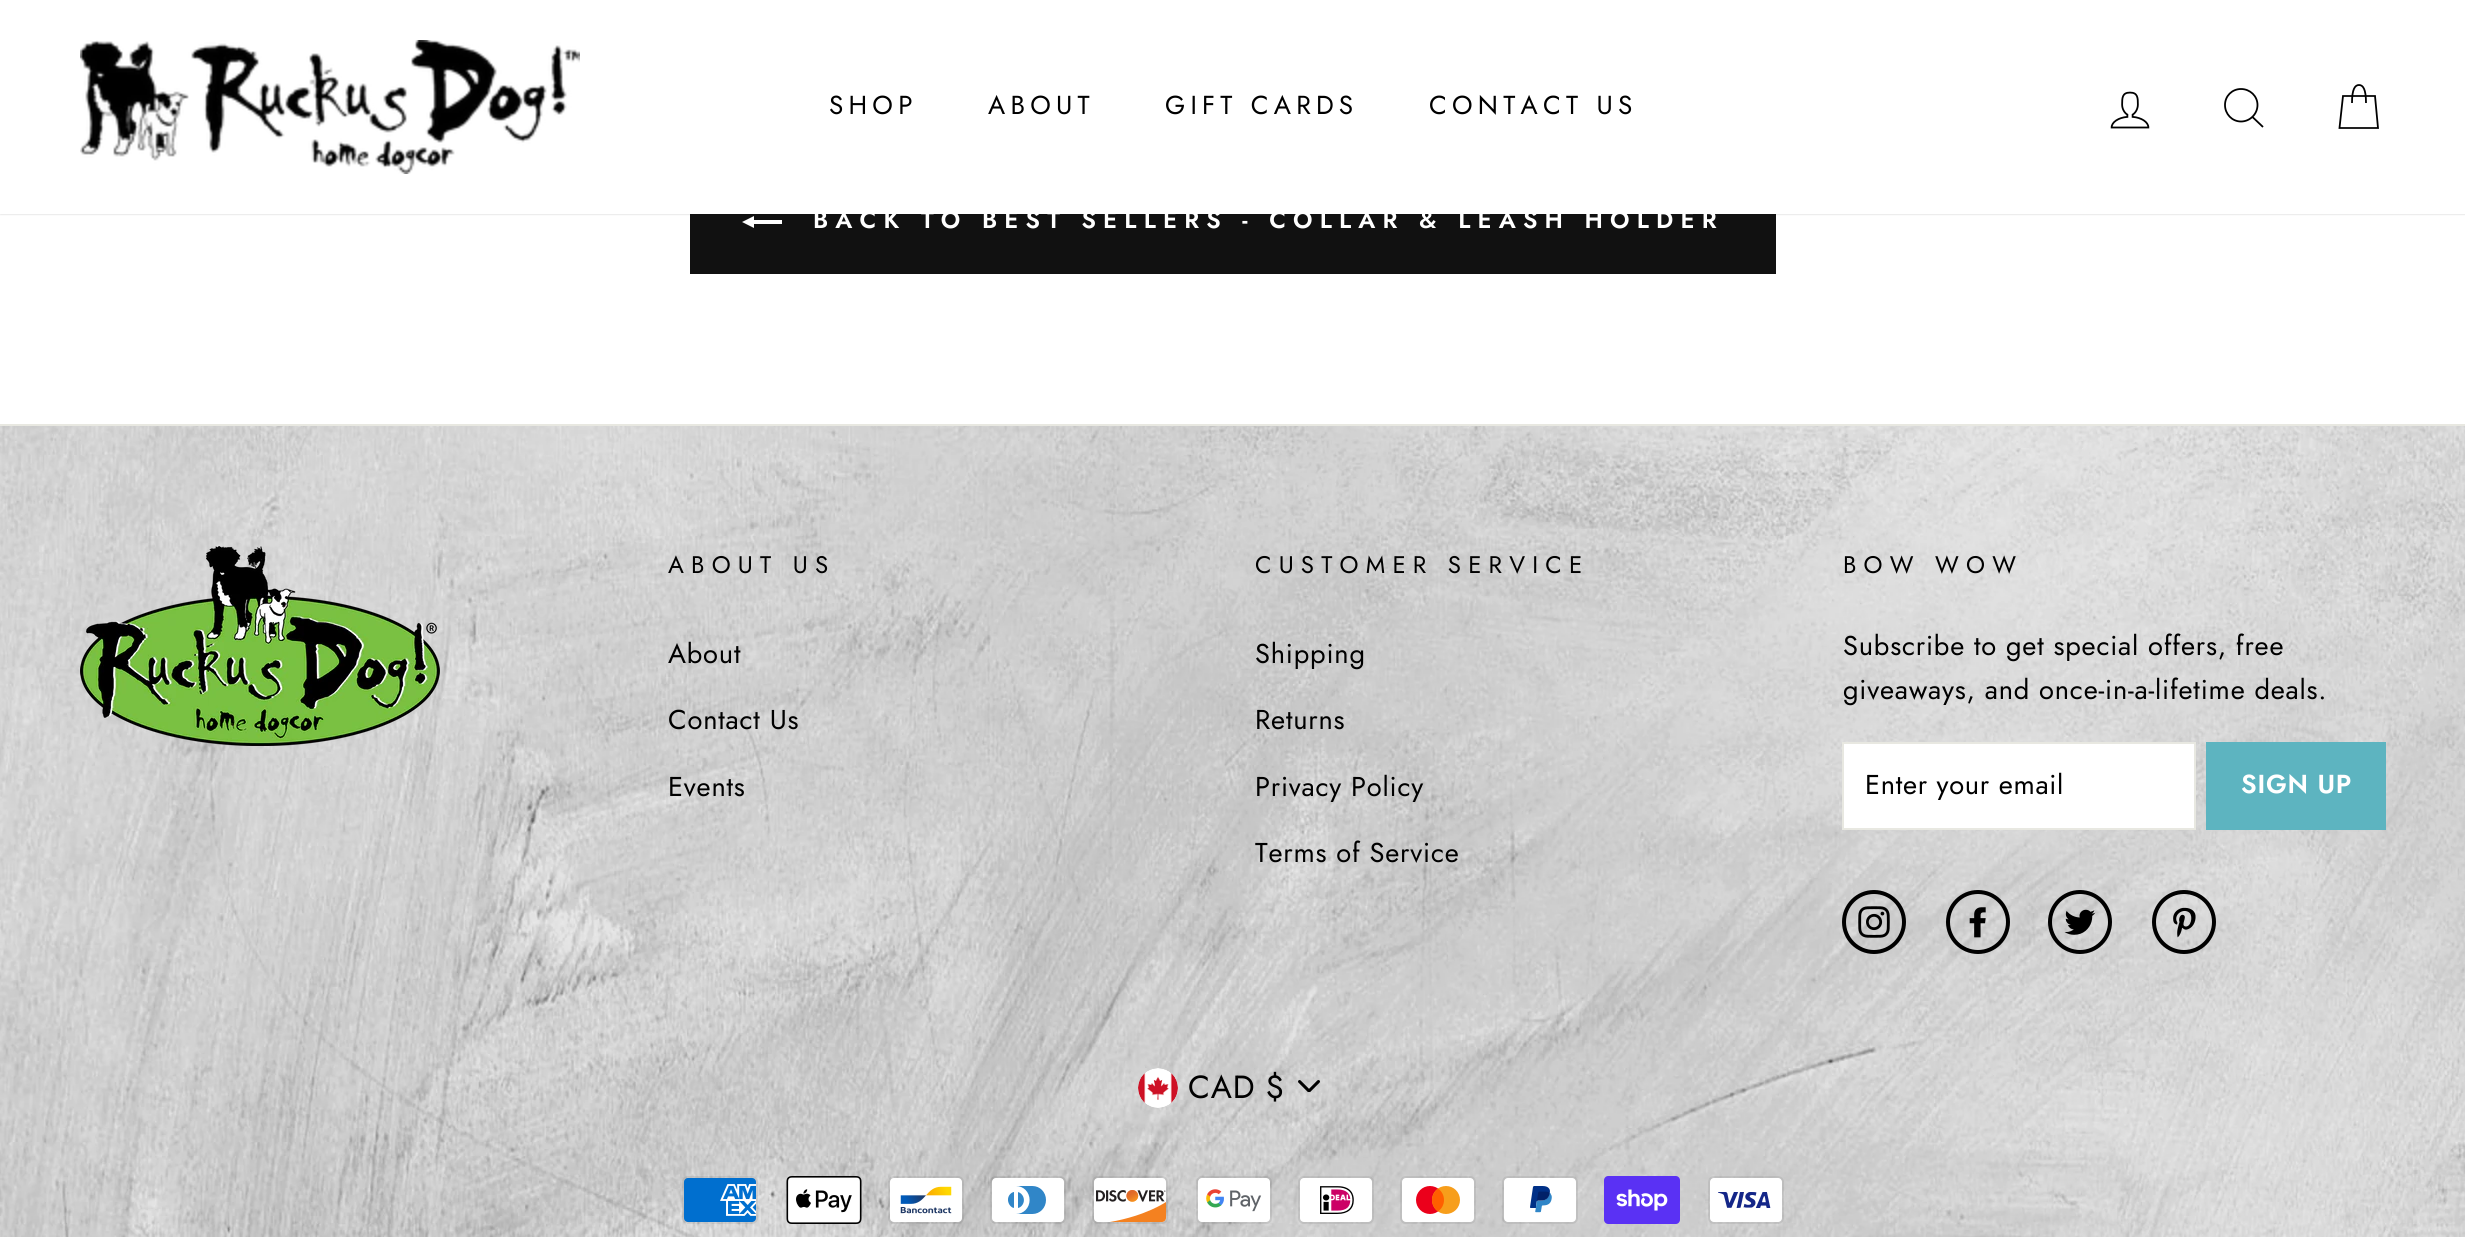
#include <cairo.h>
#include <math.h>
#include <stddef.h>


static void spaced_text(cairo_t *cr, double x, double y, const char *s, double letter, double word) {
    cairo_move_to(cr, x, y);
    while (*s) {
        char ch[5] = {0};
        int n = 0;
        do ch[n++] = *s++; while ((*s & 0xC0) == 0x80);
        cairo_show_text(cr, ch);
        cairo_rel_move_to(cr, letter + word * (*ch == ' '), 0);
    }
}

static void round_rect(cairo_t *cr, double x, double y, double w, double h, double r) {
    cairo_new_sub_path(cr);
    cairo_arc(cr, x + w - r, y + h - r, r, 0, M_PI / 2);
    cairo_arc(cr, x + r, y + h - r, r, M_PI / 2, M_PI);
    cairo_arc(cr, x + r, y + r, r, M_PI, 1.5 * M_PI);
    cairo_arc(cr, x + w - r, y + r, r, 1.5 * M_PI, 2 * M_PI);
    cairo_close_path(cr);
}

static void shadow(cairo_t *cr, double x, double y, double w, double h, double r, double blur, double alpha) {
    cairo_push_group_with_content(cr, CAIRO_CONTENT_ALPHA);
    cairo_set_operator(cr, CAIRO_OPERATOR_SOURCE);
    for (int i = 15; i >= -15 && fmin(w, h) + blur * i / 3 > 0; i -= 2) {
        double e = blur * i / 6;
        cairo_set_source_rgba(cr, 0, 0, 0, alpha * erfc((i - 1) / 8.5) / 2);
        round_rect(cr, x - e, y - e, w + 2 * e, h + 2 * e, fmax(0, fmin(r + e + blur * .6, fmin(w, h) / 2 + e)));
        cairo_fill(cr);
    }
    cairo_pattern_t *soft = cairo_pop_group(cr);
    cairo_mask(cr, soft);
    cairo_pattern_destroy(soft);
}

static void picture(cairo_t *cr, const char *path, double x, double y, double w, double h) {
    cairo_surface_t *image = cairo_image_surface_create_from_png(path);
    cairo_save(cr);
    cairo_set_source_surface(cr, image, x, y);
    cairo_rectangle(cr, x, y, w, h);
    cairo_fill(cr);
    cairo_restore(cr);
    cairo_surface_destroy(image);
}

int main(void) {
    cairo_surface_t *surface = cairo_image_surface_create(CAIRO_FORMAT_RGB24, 2465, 1237);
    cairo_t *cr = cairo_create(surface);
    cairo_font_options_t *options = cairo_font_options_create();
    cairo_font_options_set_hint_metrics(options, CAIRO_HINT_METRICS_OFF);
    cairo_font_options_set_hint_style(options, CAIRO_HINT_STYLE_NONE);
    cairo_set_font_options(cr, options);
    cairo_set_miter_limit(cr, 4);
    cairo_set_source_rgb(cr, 1, 1, 1);
    cairo_paint(cr);
    cairo_set_source_rgb(cr, 0.067, 0.067, 0.067);
    cairo_rectangle(cr, 690, 214, 1086, 60);
    cairo_fill(cr);
    cairo_set_source_rgb(cr, 1, 1, 1);
    cairo_new_path(cr);
    cairo_move_to(cr, 782, 220);
    cairo_line_to(cr, 782, 224);
    cairo_line_to(cr, 754, 224);
    cairo_line_to(cr, 754, 228);
    cairo_line_to(cr, 742, 222);
    cairo_line_to(cr, 754, 216);
    cairo_line_to(cr, 754, 220);
    cairo_close_path(cr);
    cairo_fill(cr);
    cairo_set_source_rgb(cr, 0, 0, 0);
    shadow(cr, 0, 0, 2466, 214, 0, 1, 0.2);
    cairo_set_source_rgb(cr, 1, 1, 1);
    cairo_rectangle(cr, 0, 0, 2465, 214);
    cairo_fill(cr);
    picture(cr, "img1.png", 80, 40, 500, 134);
    cairo_select_font_face(cr, "Jost", CAIRO_FONT_SLANT_NORMAL, CAIRO_FONT_WEIGHT_NORMAL);
    cairo_set_font_size(cr, 26);
    cairo_set_source_rgb(cr, 0, 0, 0);
    spaced_text(cr, 829, 114, "SHOP", 5.25, 0);
    spaced_text(cr, 988, 114, "ABOUT", 5.25, 0);
    spaced_text(cr, 1165, 114, "GIFT CARDS", 5.25, 0);
    spaced_text(cr, 1429, 114, "CONTACT US", 5.25, 0);
    picture(cr, "img2.png", 2110, 91, 40, 38);
    cairo_new_path(cr);
    cairo_move_to(cr, 2257.5, 105);
    cairo_curve_to(cr, 2257.5, 114, 2250, 121.5, 2241, 121.5);
    cairo_curve_to(cr, 2232, 121.5, 2225, 114, 2225, 105);
    cairo_curve_to(cr, 2225, 96, 2232, 89, 2241, 89);
    cairo_curve_to(cr, 2250, 89, 2257.5, 96, 2257.5, 105);
    cairo_close_path(cr);
    cairo_move_to(cr, 2263, 127);
    cairo_line_to(cr, 2252.5, 117);
    cairo_set_line_width(cr, 1.8);
    cairo_stroke(cr);
    cairo_new_path(cr);
    cairo_move_to(cr, 2352, 103);
    cairo_curve_to(cr, 2352, 89, 2355, 85, 2359, 85);
    cairo_curve_to(cr, 2363, 85, 2366, 89, 2366, 103);
    cairo_move_to(cr, 2343, 96);
    cairo_line_to(cr, 2375, 96);
    cairo_line_to(cr, 2378, 128);
    cairo_line_to(cr, 2339.5, 128);
    cairo_close_path(cr);
    cairo_stroke(cr);
    cairo_select_font_face(cr, "Jost SemiBold", CAIRO_FONT_SLANT_NORMAL, CAIRO_FONT_WEIGHT_NORMAL);
    cairo_set_font_size(cr, 24);
    cairo_set_source_rgb(cr, 1, 1, 1);
    spaced_text(cr, 813, 228, "BACK TO BEST SELLERS - COLLAR & LEASH HOLDER", 7.2, 0);
    picture(cr, "img3.png", 0, 426, 2465, 811);
    cairo_set_source_rgb(cr, 0.91, 0.91, 0.882);
    cairo_rectangle(cr, 0, 424, 2465, 2);
    cairo_fill(cr);
    picture(cr, "img4.png", 80, 546, 360, 200);
    cairo_select_font_face(cr, "Jost", CAIRO_FONT_SLANT_NORMAL, CAIRO_FONT_WEIGHT_NORMAL);
    cairo_set_source_rgb(cr, 0, 0, 0);
    spaced_text(cr, 668, 573, "ABOUT US", 7.2, 0);
    cairo_set_font_size(cr, 27.25);
    spaced_text(cr, 668, 663, "About", 0.8, 0);
    spaced_text(cr, 668, 729, "Contact Us", 0.8, 0);
    spaced_text(cr, 668, 796, "Events", 0.8, 0);
    cairo_set_font_size(cr, 24);
    spaced_text(cr, 1255, 573, "CUSTOMER SERVICE", 7.2, 0);
    cairo_set_font_size(cr, 27.25);
    spaced_text(cr, 1255, 663, "Shipping", 0.8, 0);
    spaced_text(cr, 1255, 729, "Returns", 0.8, 0);
    spaced_text(cr, 1255, 796, "Privacy Policy", 0.8, 0);
    spaced_text(cr, 1255, 862, "Terms of Service", 0.8, 0);
    cairo_set_font_size(cr, 24);
    spaced_text(cr, 1843, 573, "BOW WOW", 7.2, 0);
    cairo_set_font_size(cr, 27.25);
    spaced_text(cr, 1843, 655, "Subscribe to get special offers, free", 0.8, 0);
    spaced_text(cr, 1843, 699, "giveaways, and once-in-a-lifetime deals.", 0.8, 0);
    cairo_set_source_rgb(cr, 1, 1, 1);
    cairo_rectangle(cr, 1843, 743, 352, 86);
    cairo_fill_preserve(cr);
    cairo_set_source_rgb(cr, 0.91, 0.91, 0.882);
    cairo_set_line_width(cr, 2);
    cairo_stroke(cr);
    cairo_set_source_rgb(cr, 0, 0, 0);
    spaced_text(cr, 1865, 794, "Enter your email", 0.7, 0);
    cairo_set_source_rgb(cr, 0.365, 0.706, 0.753);
    cairo_rectangle(cr, 2206, 742, 180, 88);
    cairo_fill(cr);
    cairo_select_font_face(cr, "Jost SemiBold", CAIRO_FONT_SLANT_NORMAL, CAIRO_FONT_WEIGHT_NORMAL);
    cairo_set_font_size(cr, 26);
    cairo_set_source_rgb(cr, 1, 1, 1);
    spaced_text(cr, 2241, 793, "SIGN UP", 0.8, 0);
    cairo_new_path(cr);
    cairo_arc(cr, 1874, 922, 30, 0, 2 * M_PI);
    cairo_set_source_rgb(cr, 0, 0, 0);
    cairo_set_line_width(cr, 4);
    cairo_stroke(cr);
    picture(cr, "img5.png", 1858, 906, 32, 32);
    cairo_arc(cr, 1978, 922, 30, 0, 2 * M_PI);
    cairo_stroke(cr);
    picture(cr, "img6.png", 1969, 907, 17, 31);
    cairo_arc(cr, 2080, 922, 30, 0, 2 * M_PI);
    cairo_stroke(cr);
    picture(cr, "img7.png", 2064, 909, 32, 26);
    cairo_arc(cr, 2184, 922, 30, 0, 2 * M_PI);
    cairo_stroke(cr);
    picture(cr, "img8.png", 2173, 907, 23, 31);
    picture(cr, "img9.png", 1298, 1080, 22, 12);
    picture(cr, "img10.png", 1138, 1068, 40, 40);
    cairo_select_font_face(cr, "Jost", CAIRO_FONT_SLANT_NORMAL, CAIRO_FONT_WEIGHT_NORMAL);
    cairo_set_font_size(cr, 32);
    spaced_text(cr, 1188, 1098, "CAD $", 0.8, 0);
    picture(cr, "img11.png", 682, 1176, 76, 48);
    picture(cr, "img12.png", 786, 1176, 76, 48);
    picture(cr, "img13.png", 888, 1176, 76, 48);
    picture(cr, "img14.png", 990, 1176, 76, 48);
    picture(cr, "img15.png", 1092, 1176, 76, 48);
    picture(cr, "img16.png", 1196, 1176, 76, 48);
    picture(cr, "img17.png", 1298, 1176, 76, 48);
    picture(cr, "img18.png", 1400, 1176, 76, 48);
    picture(cr, "img19.png", 1502, 1176, 76, 48);
    picture(cr, "img20.png", 1604, 1176, 76, 48);
    picture(cr, "img21.png", 1708, 1176, 76, 48);
    cairo_surface_write_to_png(surface, "page.png");
    cairo_font_options_destroy(options);
    cairo_destroy(cr);
    cairo_surface_destroy(surface);
    return 0;
}
